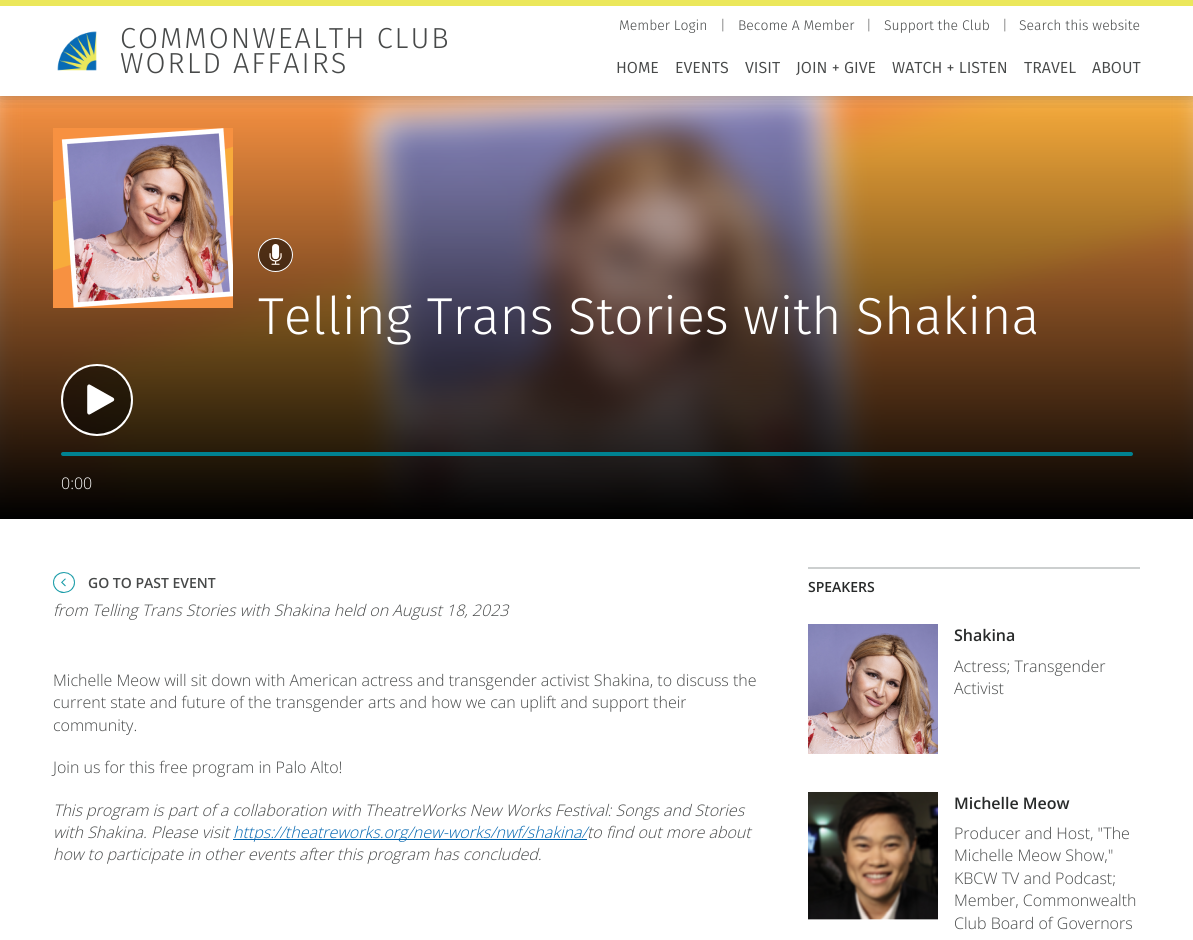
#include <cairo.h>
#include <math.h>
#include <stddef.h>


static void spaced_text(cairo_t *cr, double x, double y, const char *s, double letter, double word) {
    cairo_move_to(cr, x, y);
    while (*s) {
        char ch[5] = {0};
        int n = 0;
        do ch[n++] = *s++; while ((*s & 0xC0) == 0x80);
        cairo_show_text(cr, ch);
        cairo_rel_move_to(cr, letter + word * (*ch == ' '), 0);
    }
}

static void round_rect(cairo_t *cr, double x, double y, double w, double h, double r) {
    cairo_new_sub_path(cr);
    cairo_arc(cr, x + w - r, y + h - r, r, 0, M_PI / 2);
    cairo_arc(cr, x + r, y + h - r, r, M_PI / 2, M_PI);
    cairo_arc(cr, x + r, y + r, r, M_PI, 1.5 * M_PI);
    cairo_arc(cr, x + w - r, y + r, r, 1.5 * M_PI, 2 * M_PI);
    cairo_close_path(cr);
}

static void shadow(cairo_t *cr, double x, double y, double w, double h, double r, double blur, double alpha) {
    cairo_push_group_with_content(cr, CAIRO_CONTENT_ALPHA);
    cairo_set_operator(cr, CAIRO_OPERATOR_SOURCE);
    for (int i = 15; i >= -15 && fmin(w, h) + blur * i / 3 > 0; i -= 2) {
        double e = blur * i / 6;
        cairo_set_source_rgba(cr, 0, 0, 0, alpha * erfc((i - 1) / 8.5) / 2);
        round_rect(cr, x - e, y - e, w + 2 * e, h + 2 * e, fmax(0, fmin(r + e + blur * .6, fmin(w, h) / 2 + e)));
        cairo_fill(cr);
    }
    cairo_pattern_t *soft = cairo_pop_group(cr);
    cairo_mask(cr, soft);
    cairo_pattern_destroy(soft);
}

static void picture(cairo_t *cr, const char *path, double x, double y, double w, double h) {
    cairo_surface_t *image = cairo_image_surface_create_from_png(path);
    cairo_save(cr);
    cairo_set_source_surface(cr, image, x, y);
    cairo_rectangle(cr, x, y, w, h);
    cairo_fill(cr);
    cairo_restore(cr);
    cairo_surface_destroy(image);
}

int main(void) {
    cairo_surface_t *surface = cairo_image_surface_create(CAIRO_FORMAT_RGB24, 1193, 940);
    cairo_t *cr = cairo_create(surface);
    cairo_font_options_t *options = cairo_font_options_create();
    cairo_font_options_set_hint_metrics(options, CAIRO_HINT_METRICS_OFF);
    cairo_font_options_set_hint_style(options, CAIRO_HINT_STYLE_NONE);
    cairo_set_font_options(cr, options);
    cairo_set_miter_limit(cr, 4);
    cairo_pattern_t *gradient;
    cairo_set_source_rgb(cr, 1, 1, 1);
    cairo_paint(cr);
    picture(cr, "img2.png", 0, 96, 1193, 421);
    gradient = cairo_pattern_create_linear(597, 96, 597, 519);
    cairo_pattern_add_color_stop_rgba(gradient, 0, 0, 0, 0, 0);
    cairo_pattern_add_color_stop_rgba(gradient, 1, 0, 0, 0, 1);
    cairo_set_source(cr, gradient);
    cairo_pattern_destroy(gradient);
    cairo_rectangle(cr, 0, 105, 1193, 414);
    cairo_fill(cr);
    cairo_save(cr);
    cairo_rectangle(cr, 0, 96, 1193, 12);
    cairo_clip(cr);
    cairo_set_source_rgb(cr, 0, 0, 0);
    shadow(cr, 0, 0, 1193, 96, 0, 8, 0.3);
    cairo_restore(cr);
    cairo_set_source_rgb(cr, 0.918, 0.906, 0.357);
    cairo_rectangle(cr, 0, 0, 1193, 6);
    cairo_fill(cr);
    cairo_select_font_face(cr, "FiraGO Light", CAIRO_FONT_SLANT_NORMAL, CAIRO_FONT_WEIGHT_NORMAL);
    cairo_set_font_size(cr, 14);
    cairo_set_source_rgb(cr, 0.278, 0.286, 0.286);
    cairo_move_to(cr, 619, 30);
    cairo_show_text(cr, "Member Login");
    cairo_set_source_rgb(cr, 0.388, 0.388, 0.388);
    cairo_move_to(cr, 720, 30);
    cairo_show_text(cr, "|");
    cairo_set_source_rgb(cr, 0.278, 0.286, 0.286);
    cairo_move_to(cr, 738, 30);
    cairo_show_text(cr, "Become A Member");
    cairo_set_source_rgb(cr, 0.388, 0.388, 0.388);
    cairo_move_to(cr, 866, 30);
    cairo_show_text(cr, "|");
    cairo_set_source_rgb(cr, 0.278, 0.286, 0.286);
    cairo_move_to(cr, 884, 30);
    cairo_show_text(cr, "Support the Club");
    cairo_set_source_rgb(cr, 0.388, 0.388, 0.388);
    cairo_move_to(cr, 1002, 30);
    cairo_show_text(cr, "|");
    cairo_set_source_rgb(cr, 0.278, 0.286, 0.286);
    cairo_move_to(cr, 1019, 30);
    cairo_show_text(cr, "Search this website");
    picture(cr, "img1.png", 57, 31, 40, 40);
    cairo_set_font_size(cr, 29);
    spaced_text(cr, 120, 48, "COMMONWEALTH CLUB", 2, 0);
    spaced_text(cr, 120, 73, "WORLD AFFAIRS", 2, 0);
    cairo_select_font_face(cr, "FiraGO", CAIRO_FONT_SLANT_NORMAL, CAIRO_FONT_WEIGHT_NORMAL);
    cairo_set_font_size(cr, 16);
    cairo_move_to(cr, 616, 73);
    cairo_show_text(cr, "HOME");
    cairo_move_to(cr, 675, 73);
    cairo_show_text(cr, "EVENTS");
    cairo_move_to(cr, 745, 73);
    cairo_show_text(cr, "VISIT");
    cairo_move_to(cr, 796, 73);
    cairo_show_text(cr, "JOIN + GIVE");
    cairo_move_to(cr, 892, 73);
    cairo_show_text(cr, "WATCH + LISTEN");
    cairo_move_to(cr, 1024, 73);
    cairo_show_text(cr, "TRAVEL");
    cairo_move_to(cr, 1092, 73);
    cairo_show_text(cr, "ABOUT");
    picture(cr, "img3.png", 53, 128, 180, 180);
    picture(cr, "img4.png", 258, 238, 35, 34);
    cairo_select_font_face(cr, "FiraGO Light", CAIRO_FONT_SLANT_NORMAL, CAIRO_FONT_WEIGHT_NORMAL);
    cairo_set_font_size(cr, 52);
    cairo_set_source_rgb(cr, 1, 1, 1);
    cairo_move_to(cr, 258, 334);
    cairo_show_text(cr, "Telling Trans Stories with Shakina");
    picture(cr, "img5.png", 61, 364, 72, 72);
    cairo_set_source_rgb(cr, 0, 0.51, 0.569);
    round_rect(cr, 61, 452, 1072, 4, 2);
    cairo_fill(cr);
    cairo_select_font_face(cr, "Open Sans Light", CAIRO_FONT_SLANT_NORMAL, CAIRO_FONT_WEIGHT_NORMAL);
    cairo_set_font_size(cr, 16);
    cairo_set_source_rgb(cr, 1, 1, 1);
    cairo_move_to(cr, 61, 489);
    cairo_show_text(cr, "0:00");
    picture(cr, "img6.png", 53, 572, 22, 21);
    cairo_select_font_face(cr, "Open Sans SemiBold", CAIRO_FONT_SLANT_NORMAL, CAIRO_FONT_WEIGHT_NORMAL);
    cairo_set_font_size(cr, 14);
    cairo_set_source_rgb(cr, 0.278, 0.286, 0.286);
    cairo_move_to(cr, 88, 588);
    cairo_show_text(cr, "GO TO PAST EVENT");
    cairo_select_font_face(cr, "Open Sans Light", CAIRO_FONT_SLANT_ITALIC, CAIRO_FONT_WEIGHT_NORMAL);
    cairo_set_font_size(cr, 16);
    cairo_move_to(cr, 53, 616);
    cairo_show_text(cr, "from Telling Trans Stories with Shakina held on August 18, 2023");
    cairo_select_font_face(cr, "Open Sans Light", CAIRO_FONT_SLANT_NORMAL, CAIRO_FONT_WEIGHT_NORMAL);
    cairo_move_to(cr, 53, 686);
    cairo_show_text(cr, "Michelle Meow will sit down with American actress and transgender activist Shakina, to discuss the");
    cairo_move_to(cr, 53, 708);
    cairo_show_text(cr, "current state and future of the transgender arts and how we can uplift and support their");
    cairo_move_to(cr, 53, 731);
    cairo_show_text(cr, "community.");
    cairo_move_to(cr, 53, 773);
    cairo_show_text(cr, "Join us for this free program in Palo Alto!");
    cairo_select_font_face(cr, "Open Sans Light", CAIRO_FONT_SLANT_ITALIC, CAIRO_FONT_WEIGHT_NORMAL);
    cairo_move_to(cr, 53, 816);
    cairo_show_text(cr, "This program is part of a collaboration with TheatreWorks New Works Festival: Songs and Stories");
    cairo_move_to(cr, 53, 838);
    cairo_show_text(cr, "with Shakina. Please visit");
    cairo_set_source_rgb(cr, 0, 0.396, 0.69);
    cairo_rectangle(cr, 233, 839, 354, 1);
    cairo_fill(cr);
    cairo_move_to(cr, 233, 838);
    cairo_show_text(cr, "https://theatreworks.org/new-works/nwf/shakina/");
    cairo_set_source_rgb(cr, 0.278, 0.286, 0.286);
    cairo_move_to(cr, 587, 838);
    cairo_show_text(cr, "to find out more about");
    cairo_move_to(cr, 53, 860);
    cairo_show_text(cr, "how to participate in other events after this program has concluded.");
    cairo_set_source_rgb(cr, 0.8, 0.812, 0.812);
    cairo_rectangle(cr, 808, 567, 332, 2);
    cairo_fill(cr);
    cairo_select_font_face(cr, "Open Sans SemiBold", CAIRO_FONT_SLANT_NORMAL, CAIRO_FONT_WEIGHT_NORMAL);
    cairo_set_font_size(cr, 14);
    cairo_set_source_rgb(cr, 0.157, 0.165, 0.165);
    cairo_move_to(cr, 808, 592);
    cairo_show_text(cr, "SPEAKERS");
    picture(cr, "img7.png", 808, 624, 130, 130);
    cairo_set_font_size(cr, 16);
    cairo_move_to(cr, 954, 641);
    cairo_show_text(cr, "Shakina");
    cairo_select_font_face(cr, "Open Sans Light", CAIRO_FONT_SLANT_NORMAL, CAIRO_FONT_WEIGHT_NORMAL);
    cairo_set_source_rgb(cr, 0.278, 0.286, 0.286);
    cairo_move_to(cr, 954, 672);
    cairo_show_text(cr, "Actress; Transgender");
    cairo_move_to(cr, 954, 694);
    cairo_show_text(cr, "Activist");
    picture(cr, "img8.png", 808, 792, 130, 128);
    cairo_select_font_face(cr, "Open Sans SemiBold", CAIRO_FONT_SLANT_NORMAL, CAIRO_FONT_WEIGHT_NORMAL);
    cairo_set_source_rgb(cr, 0.157, 0.165, 0.165);
    cairo_move_to(cr, 954, 809);
    cairo_show_text(cr, "Michelle Meow");
    cairo_select_font_face(cr, "Open Sans Light", CAIRO_FONT_SLANT_NORMAL, CAIRO_FONT_WEIGHT_NORMAL);
    cairo_set_source_rgb(cr, 0.278, 0.286, 0.286);
    cairo_move_to(cr, 954, 839);
    cairo_show_text(cr, "Producer and Host, \"The");
    cairo_move_to(cr, 954, 861);
    cairo_show_text(cr, "Michelle Meow Show,\"");
    cairo_move_to(cr, 954, 884);
    cairo_show_text(cr, "KBCW TV and Podcast;");
    cairo_move_to(cr, 954, 906);
    cairo_show_text(cr, "Member, Commonwealth");
    cairo_move_to(cr, 954, 929);
    cairo_show_text(cr, "Club Board of Governors");
    cairo_surface_write_to_png(surface, "page.png");
    cairo_font_options_destroy(options);
    cairo_destroy(cr);
    cairo_surface_destroy(surface);
    return 0;
}
